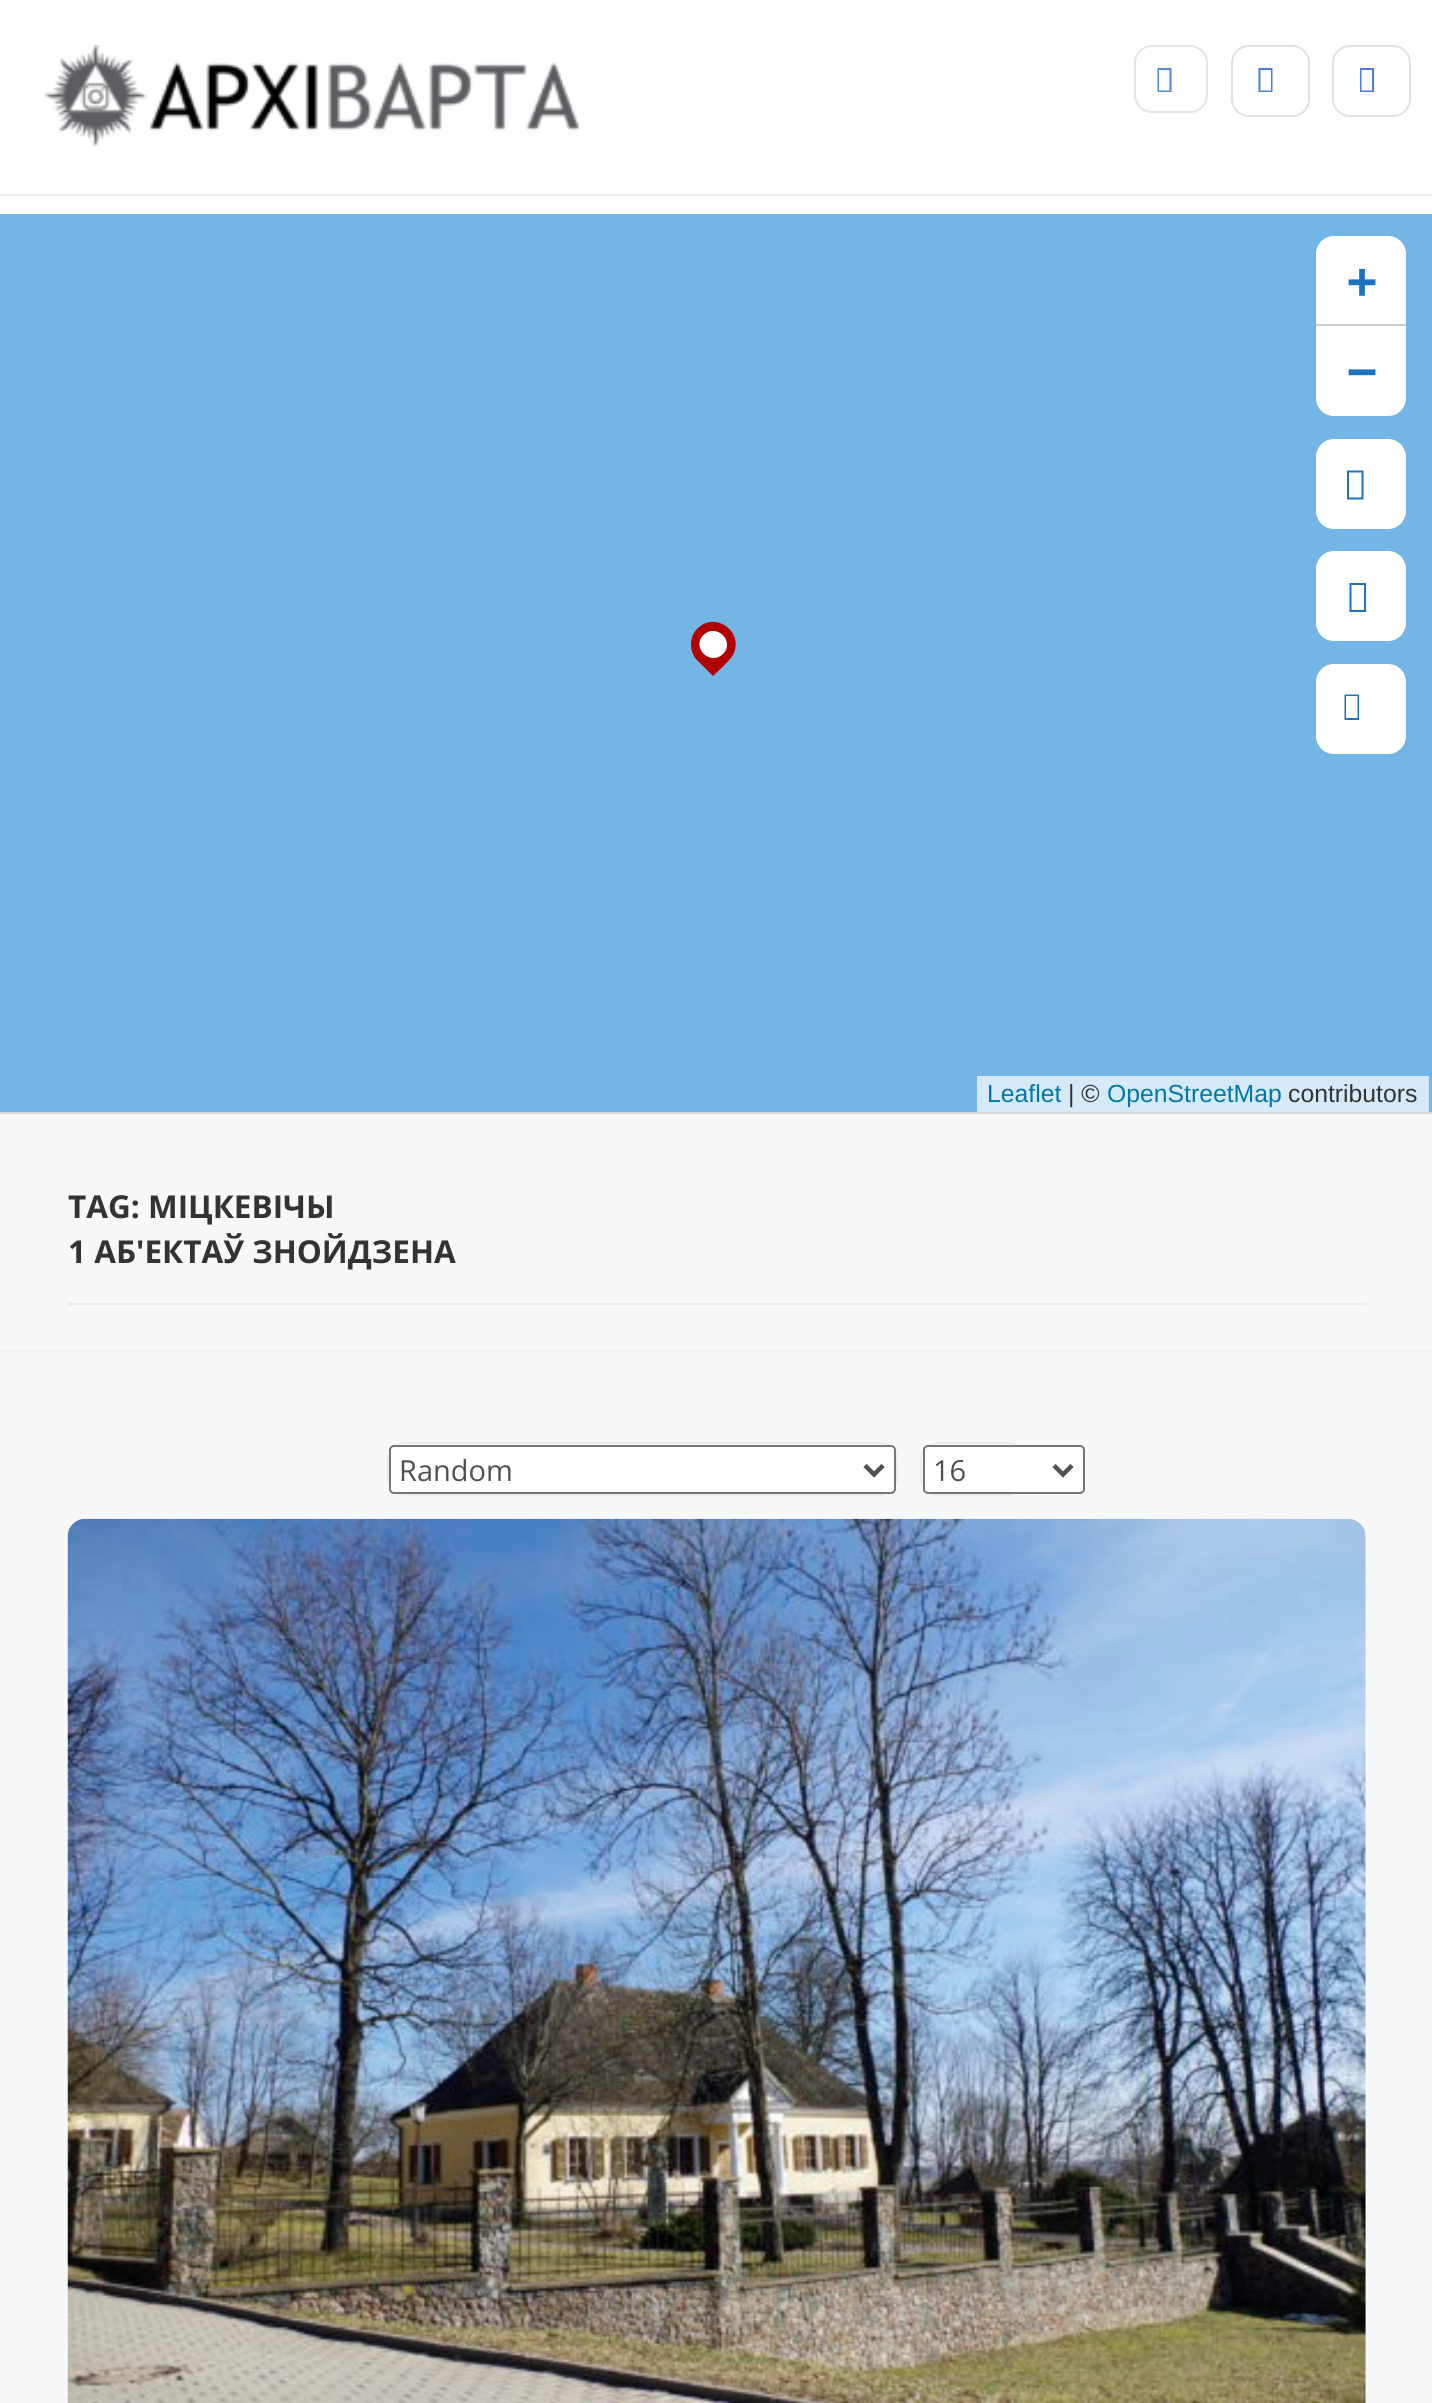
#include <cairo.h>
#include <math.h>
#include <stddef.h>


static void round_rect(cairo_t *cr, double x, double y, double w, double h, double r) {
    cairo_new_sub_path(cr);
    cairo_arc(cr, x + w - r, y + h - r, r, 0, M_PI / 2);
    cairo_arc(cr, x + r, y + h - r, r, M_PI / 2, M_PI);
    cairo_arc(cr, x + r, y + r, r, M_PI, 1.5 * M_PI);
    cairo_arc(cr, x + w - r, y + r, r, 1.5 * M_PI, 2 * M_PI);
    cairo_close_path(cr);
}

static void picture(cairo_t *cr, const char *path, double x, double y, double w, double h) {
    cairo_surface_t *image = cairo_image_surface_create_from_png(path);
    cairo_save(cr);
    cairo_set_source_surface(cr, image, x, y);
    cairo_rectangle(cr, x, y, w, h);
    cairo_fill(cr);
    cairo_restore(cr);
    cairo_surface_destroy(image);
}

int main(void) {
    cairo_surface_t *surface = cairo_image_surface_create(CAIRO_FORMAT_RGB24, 1432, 2403);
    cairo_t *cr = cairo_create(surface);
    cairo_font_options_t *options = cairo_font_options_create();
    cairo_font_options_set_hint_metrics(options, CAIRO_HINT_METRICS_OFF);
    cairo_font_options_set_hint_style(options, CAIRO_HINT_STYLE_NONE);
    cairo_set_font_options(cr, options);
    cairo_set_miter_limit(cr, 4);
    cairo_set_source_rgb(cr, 1, 1, 1);
    cairo_paint(cr);
    cairo_set_source_rgb(cr, 0.922, 0.922, 0.922);
    cairo_rectangle(cr, 0, 194, 1432, 2);
    cairo_fill(cr);
    picture(cr, "img1.png", 45, 45, 536, 101);
    round_rect(cr, 1135, 46, 72, 66, 17);
    cairo_set_source_rgb(cr, 0.894, 0.894, 0.894);
    cairo_stroke(cr);
    cairo_set_source_rgb(cr, 0.329, 0.537, 0.851);
    cairo_new_path(cr);
    cairo_move_to(cr, 1157.5, 92);
    cairo_line_to(cr, 1157.5, 68);
    cairo_line_to(cr, 1171.5, 68);
    cairo_line_to(cr, 1171.5, 92);
    cairo_close_path(cr);
    cairo_move_to(cr, 1159, 90.5);
    cairo_line_to(cr, 1169.5, 90.5);
    cairo_line_to(cr, 1169.5, 70);
    cairo_line_to(cr, 1159, 70);
    cairo_close_path(cr);
    cairo_fill(cr);
    round_rect(cr, 1232, 46, 77, 70, 17);
    cairo_set_source_rgb(cr, 0.886, 0.886, 0.886);
    cairo_stroke(cr);
    cairo_set_source_rgb(cr, 0.282, 0.506, 0.839);
    cairo_new_path(cr);
    cairo_move_to(cr, 1258.5, 92);
    cairo_line_to(cr, 1258.5, 68);
    cairo_line_to(cr, 1272.5, 68);
    cairo_line_to(cr, 1272.5, 92);
    cairo_close_path(cr);
    cairo_move_to(cr, 1260.5, 90.5);
    cairo_line_to(cr, 1271, 90.5);
    cairo_line_to(cr, 1271, 70);
    cairo_line_to(cr, 1260.5, 70);
    cairo_close_path(cr);
    cairo_fill(cr);
    round_rect(cr, 1333, 46, 77, 70, 17);
    cairo_set_source_rgb(cr, 0.886, 0.886, 0.886);
    cairo_stroke(cr);
    cairo_set_source_rgb(cr, 0.282, 0.506, 0.839);
    cairo_new_path(cr);
    cairo_move_to(cr, 1360, 92);
    cairo_line_to(cr, 1360, 68);
    cairo_line_to(cr, 1374, 68);
    cairo_line_to(cr, 1374, 92);
    cairo_close_path(cr);
    cairo_move_to(cr, 1361.5, 90.5);
    cairo_line_to(cr, 1372, 90.5);
    cairo_line_to(cr, 1372, 70);
    cairo_line_to(cr, 1361.5, 70);
    cairo_close_path(cr);
    cairo_fill(cr);
    cairo_set_source_rgb(cr, 0.961, 0.969, 0.98);
    cairo_rectangle(cr, 0, 1114, 1432, 1289);
    cairo_fill(cr);
    cairo_set_source_rgb(cr, 0.451, 0.714, 0.902);
    cairo_rectangle(cr, 0, 214, 1432, 898);
    cairo_fill(cr);
    cairo_set_source_rgb(cr, 0.851, 0.851, 0.851);
    cairo_rectangle(cr, 0, 1112, 1432, 2);
    cairo_fill(cr);
    cairo_set_source_rgb(cr, 0.69, 0, 0);
    cairo_new_path(cr);
    cairo_move_to(cr, 697, 629);
    cairo_curve_to(cr, 714, 611, 743, 630, 734, 653);
    cairo_curve_to(cr, 731, 660, 719, 670, 713, 676);
    cairo_line_to(cr, 697, 660);
    cairo_curve_to(cr, 689, 652, 689, 637, 697, 629);
    cairo_close_path(cr);
    cairo_fill(cr);
    cairo_set_source_rgb(cr, 1, 1, 1);
    cairo_new_path(cr);
    cairo_move_to(cr, 703.5, 635);
    cairo_curve_to(cr, 716.5, 622.5, 735.5, 641.5, 723, 654);
    cairo_curve_to(cr, 710, 666.5, 691, 647.5, 703.5, 635);
    cairo_close_path(cr);
    cairo_fill(cr);
    cairo_new_path(cr);
    cairo_move_to(cr, 1334, 236);
    cairo_line_to(cr, 1388, 236);
    cairo_curve_to(cr, 1398, 236, 1406, 244, 1406, 254);
    cairo_line_to(cr, 1406, 326);
    cairo_line_to(cr, 1316, 326);
    cairo_line_to(cr, 1316, 254);
    cairo_curve_to(cr, 1316, 244, 1324, 236, 1334, 236);
    cairo_close_path(cr);
    cairo_fill(cr);
    cairo_set_source_rgb(cr, 0.8, 0.8, 0.8);
    cairo_rectangle(cr, 1316, 324, 90, 2);
    cairo_fill(cr);
    cairo_select_font_face(cr, "DejaVu Sans Mono", CAIRO_FONT_SLANT_NORMAL, CAIRO_FONT_WEIGHT_BOLD);
    cairo_set_font_size(cr, 50);
    cairo_set_source_rgb(cr, 0.118, 0.451, 0.745);
    cairo_move_to(cr, 1347, 298);
    cairo_show_text(cr, "+");
    cairo_set_source_rgb(cr, 1, 1, 1);
    cairo_new_path(cr);
    cairo_move_to(cr, 1316, 326);
    cairo_line_to(cr, 1406, 326);
    cairo_line_to(cr, 1406, 398);
    cairo_curve_to(cr, 1406, 408, 1398, 416, 1388, 416);
    cairo_line_to(cr, 1334, 416);
    cairo_curve_to(cr, 1324, 416, 1316, 408, 1316, 398);
    cairo_close_path(cr);
    cairo_fill(cr);
    cairo_set_source_rgb(cr, 0.118, 0.451, 0.745);
    cairo_move_to(cr, 1347, 388);
    cairo_show_text(cr, "−");
    cairo_set_source_rgb(cr, 1, 1, 1);
    round_rect(cr, 1316, 439, 90, 90, 18);
    cairo_fill(cr);
    cairo_set_source_rgb(cr, 0.118, 0.451, 0.745);
    cairo_new_path(cr);
    cairo_move_to(cr, 1347, 499.5);
    cairo_line_to(cr, 1347, 470.5);
    cairo_line_to(cr, 1363.5, 470.5);
    cairo_line_to(cr, 1363.5, 499.5);
    cairo_close_path(cr);
    cairo_move_to(cr, 1349, 497.5);
    cairo_line_to(cr, 1361.5, 497.5);
    cairo_line_to(cr, 1361.5, 472.5);
    cairo_line_to(cr, 1349, 472.5);
    cairo_close_path(cr);
    cairo_fill(cr);
    cairo_set_source_rgb(cr, 1, 1, 1);
    round_rect(cr, 1316, 551, 90, 90, 18);
    cairo_fill(cr);
    cairo_set_source_rgb(cr, 0.118, 0.451, 0.745);
    cairo_new_path(cr);
    cairo_move_to(cr, 1349.5, 612);
    cairo_line_to(cr, 1349.5, 583);
    cairo_line_to(cr, 1366, 583);
    cairo_line_to(cr, 1366, 612);
    cairo_close_path(cr);
    cairo_move_to(cr, 1351.5, 610);
    cairo_line_to(cr, 1364, 610);
    cairo_line_to(cr, 1364, 585);
    cairo_line_to(cr, 1351.5, 585);
    cairo_close_path(cr);
    cairo_fill(cr);
    cairo_set_source_rgb(cr, 1, 1, 1);
    round_rect(cr, 1316, 664, 90, 90, 18);
    cairo_fill(cr);
    cairo_set_source_rgb(cr, 0.118, 0.451, 0.745);
    cairo_new_path(cr);
    cairo_move_to(cr, 1344.5, 720);
    cairo_line_to(cr, 1344.5, 694.5);
    cairo_line_to(cr, 1359, 694.5);
    cairo_line_to(cr, 1359, 720);
    cairo_close_path(cr);
    cairo_move_to(cr, 1346, 718);
    cairo_line_to(cr, 1357.5, 718);
    cairo_line_to(cr, 1357.5, 696);
    cairo_line_to(cr, 1346, 696);
    cairo_close_path(cr);
    cairo_fill(cr);
    cairo_set_source_rgb(cr, 0.835, 0.914, 0.973);
    cairo_rectangle(cr, 977, 1076, 452, 36);
    cairo_fill(cr);
    cairo_select_font_face(cr, "Liberation Sans", CAIRO_FONT_SLANT_NORMAL, CAIRO_FONT_WEIGHT_NORMAL);
    cairo_set_font_size(cr, 24.75);
    cairo_set_source_rgb(cr, 0, 0.471, 0.659);
    cairo_move_to(cr, 987, 1102);
    cairo_show_text(cr, "Leaflet");
    cairo_set_source_rgb(cr, 0.2, 0.2, 0.2);
    cairo_move_to(cr, 1068, 1102);
    cairo_show_text(cr, "| ©");
    cairo_set_source_rgb(cr, 0, 0.471, 0.659);
    cairo_move_to(cr, 1107, 1102);
    cairo_show_text(cr, "OpenStreetMap");
    cairo_set_source_rgb(cr, 0.2, 0.2, 0.2);
    cairo_move_to(cr, 1288, 1102);
    cairo_show_text(cr, "contributors");
    cairo_set_source_rgb(cr, 0.922, 0.922, 0.922);
    cairo_rectangle(cr, 68, 1303, 1298, 2);
    cairo_fill(cr);
    cairo_select_font_face(cr, "Open Sans", CAIRO_FONT_SLANT_NORMAL, CAIRO_FONT_WEIGHT_BOLD);
    cairo_set_font_size(cr, 31.5);
    cairo_set_source_rgb(cr, 0.2, 0.2, 0.2);
    cairo_move_to(cr, 68, 1218);
    cairo_show_text(cr, "TAG: МІЦКЕВІЧЫ");
    cairo_move_to(cr, 68, 1263);
    cairo_show_text(cr, "1 АБ'ЕКТАЎ ЗНОЙДЗЕНА");
    cairo_set_source_rgb(cr, 0.941, 0.945, 0.953);
    cairo_rectangle(cr, 0, 1350, 1432, 2);
    cairo_fill(cr);
    round_rect(cr, 388, 1443, 509, 52, 17);
    cairo_set_source_rgb(cr, 0.922, 0.922, 0.922);
    cairo_stroke(cr);
    cairo_set_source_rgb(cr, 1, 1, 1);
    round_rect(cr, 390, 1446, 505, 47, 4);
    cairo_fill_preserve(cr);
    cairo_set_source_rgb(cr, 0.463, 0.463, 0.463);
    cairo_stroke(cr);
    cairo_new_path(cr);
    cairo_move_to(cr, 865, 1465.5);
    cairo_line_to(cr, 874, 1474.5);
    cairo_line_to(cr, 883, 1465.5);
    cairo_set_source_rgb(cr, 0.318, 0.318, 0.318);
    cairo_set_line_width(cr, 4.5);
    cairo_stroke(cr);
    cairo_select_font_face(cr, "Open Sans", CAIRO_FONT_SLANT_NORMAL, CAIRO_FONT_WEIGHT_NORMAL);
    cairo_set_font_size(cr, 29);
    cairo_move_to(cr, 399, 1481);
    cairo_show_text(cr, "Random");
    round_rect(cr, 921, 1443, 104, 52, 17);
    cairo_set_source_rgb(cr, 0.922, 0.922, 0.922);
    cairo_set_line_width(cr, 2);
    cairo_stroke(cr);
    cairo_set_source_rgb(cr, 1, 1, 1);
    round_rect(cr, 924, 1446, 160, 47, 4);
    cairo_fill_preserve(cr);
    cairo_set_source_rgb(cr, 0.463, 0.463, 0.463);
    cairo_stroke(cr);
    cairo_new_path(cr);
    cairo_move_to(cr, 1054, 1465.5);
    cairo_line_to(cr, 1063, 1474.5);
    cairo_line_to(cr, 1072, 1465.5);
    cairo_set_source_rgb(cr, 0.318, 0.318, 0.318);
    cairo_set_line_width(cr, 4.5);
    cairo_stroke(cr);
    cairo_move_to(cr, 933, 1481);
    cairo_show_text(cr, "16");
    cairo_set_source_rgb(cr, 1, 1, 1);
    round_rect(cr, 68, 1519, 1298, 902, 18);
    cairo_fill(cr);
    picture(cr, "img2.png", 67, 1518, 1299, 885);
    cairo_surface_write_to_png(surface, "page.png");
    cairo_font_options_destroy(options);
    cairo_destroy(cr);
    cairo_surface_destroy(surface);
    return 0;
}
